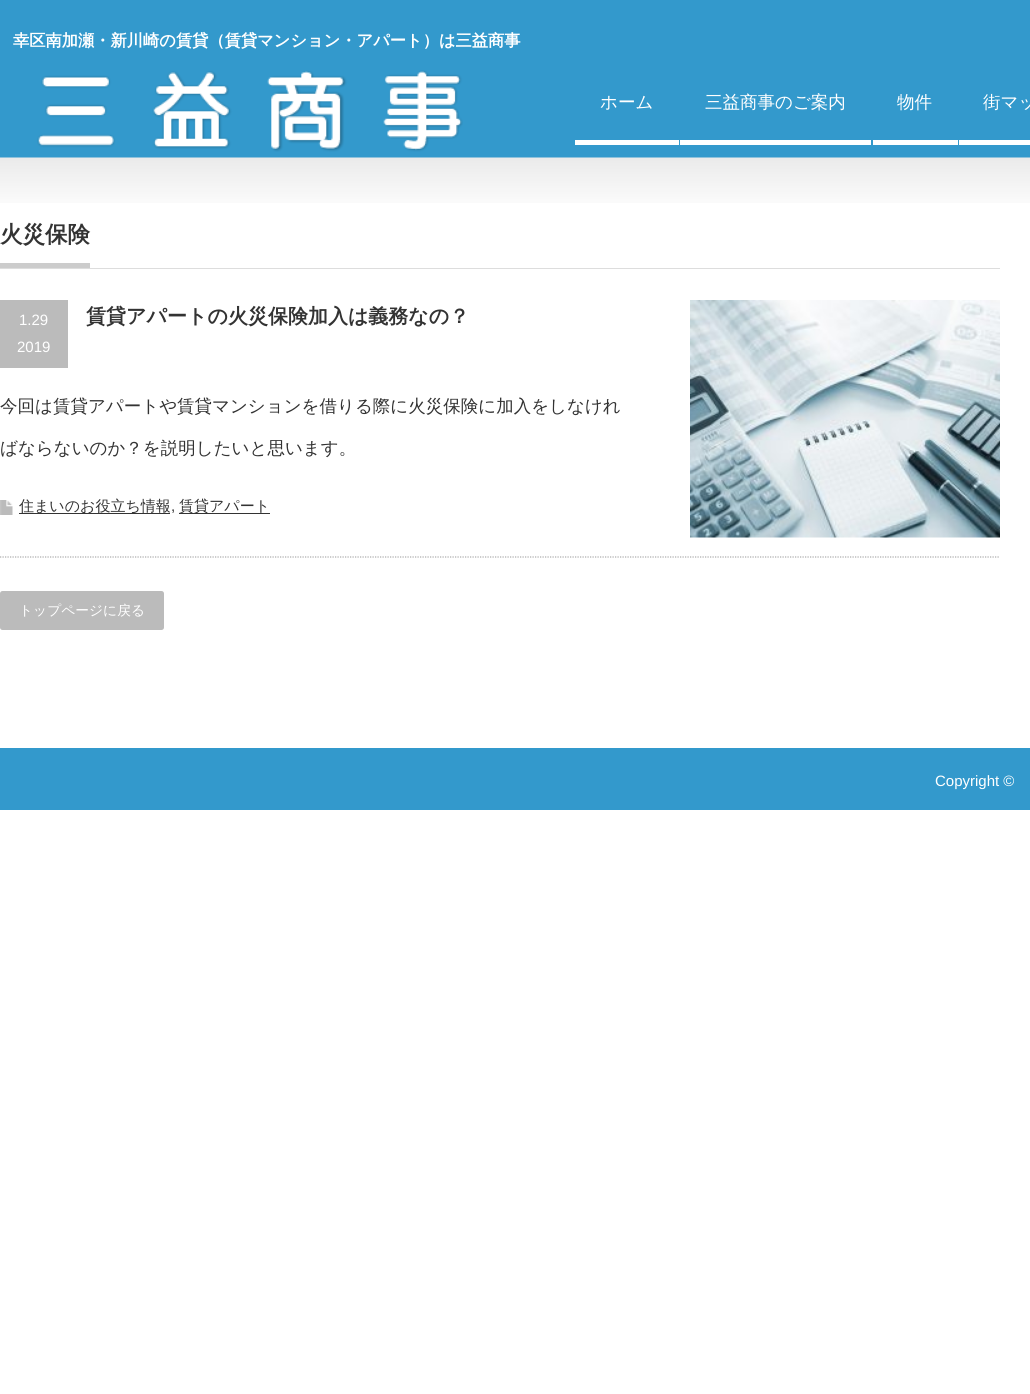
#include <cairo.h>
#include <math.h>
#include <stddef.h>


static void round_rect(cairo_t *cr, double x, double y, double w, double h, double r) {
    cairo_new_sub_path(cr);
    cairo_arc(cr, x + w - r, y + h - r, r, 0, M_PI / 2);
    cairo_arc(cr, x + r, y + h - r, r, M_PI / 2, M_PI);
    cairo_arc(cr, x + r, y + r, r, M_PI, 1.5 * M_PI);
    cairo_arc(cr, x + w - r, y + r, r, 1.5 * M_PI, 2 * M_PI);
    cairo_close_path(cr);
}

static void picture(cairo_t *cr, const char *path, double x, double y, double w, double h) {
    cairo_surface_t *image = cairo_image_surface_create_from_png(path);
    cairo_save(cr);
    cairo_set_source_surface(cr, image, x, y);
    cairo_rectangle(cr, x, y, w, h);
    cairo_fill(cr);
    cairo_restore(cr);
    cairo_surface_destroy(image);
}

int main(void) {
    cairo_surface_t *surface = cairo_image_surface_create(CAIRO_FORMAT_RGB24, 1030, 1394);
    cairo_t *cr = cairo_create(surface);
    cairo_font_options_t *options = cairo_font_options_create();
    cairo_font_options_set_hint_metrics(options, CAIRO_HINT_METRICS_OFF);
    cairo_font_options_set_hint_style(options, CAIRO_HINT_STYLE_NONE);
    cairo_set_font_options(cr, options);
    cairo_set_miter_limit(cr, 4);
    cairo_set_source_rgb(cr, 1, 1, 1);
    cairo_paint(cr);
    cairo_set_source_rgb(cr, 0.2, 0.6, 0.8);
    cairo_rectangle(cr, 0, 0, 1030, 158);
    cairo_fill(cr);
    cairo_select_font_face(cr, "WenQuanYi Zen Hei", CAIRO_FONT_SLANT_NORMAL, CAIRO_FONT_WEIGHT_BOLD);
    cairo_set_font_size(cr, 16.25);
    cairo_set_source_rgb(cr, 1, 1, 1);
    cairo_move_to(cr, 13, 46);
    cairo_show_text(cr, "幸区南加瀬・新川崎の賃貸（賃貸マンション・アパート）は三益商事");
    picture(cr, "img1.png", 37, 70, 426, 82);
    cairo_rectangle(cr, 575, 140, 104, 5);
    cairo_fill(cr);
    cairo_select_font_face(cr, "WenQuanYi Zen Hei Medium", CAIRO_FONT_SLANT_NORMAL, CAIRO_FONT_WEIGHT_NORMAL);
    cairo_set_font_size(cr, 17.5);
    cairo_move_to(cr, 600, 108);
    cairo_show_text(cr, "ホーム");
    cairo_rectangle(cr, 680, 140, 191, 5);
    cairo_fill(cr);
    cairo_move_to(cr, 705, 108);
    cairo_show_text(cr, "三益商事のご案内");
    cairo_rectangle(cr, 873, 140, 85, 5);
    cairo_fill(cr);
    cairo_move_to(cr, 897, 108);
    cairo_show_text(cr, "物件");
    cairo_rectangle(cr, 959, 140, 71, 5);
    cairo_fill(cr);
    cairo_move_to(cr, 983, 108);
    cairo_show_text(cr, "街マッ");
    picture(cr, "img2.png", 0, 157, 1030, 46);
    cairo_set_source_rgb(cr, 0.867, 0.867, 0.867);
    cairo_rectangle(cr, 0, 268, 1000, 1);
    cairo_fill(cr);
    cairo_set_source_rgb(cr, 0.8, 0.8, 0.8);
    cairo_rectangle(cr, 0, 263, 90, 5);
    cairo_fill(cr);
    cairo_select_font_face(cr, "WenQuanYi Zen Hei", CAIRO_FONT_SLANT_NORMAL, CAIRO_FONT_WEIGHT_BOLD);
    cairo_set_font_size(cr, 22.5);
    cairo_set_source_rgb(cr, 0.2, 0.2, 0.2);
    cairo_move_to(cr, 0, 242);
    cairo_show_text(cr, "火災保険");
    cairo_new_path(cr);
    cairo_move_to(cr, 0, 557);
    cairo_line_to(cr, 1000, 557);
    cairo_set_source_rgb(cr, 0.667, 0.667, 0.667);
    cairo_set_line_width(cr, 1.2);
    cairo_set_dash(cr, (double[]){1.25, 1.25}, 2, 0);
    cairo_stroke(cr);
    cairo_set_source_rgb(cr, 0.733, 0.733, 0.733);
    cairo_rectangle(cr, 0, 300, 68, 68);
    cairo_fill(cr);
    cairo_select_font_face(cr, "Liberation Sans", CAIRO_FONT_SLANT_NORMAL, CAIRO_FONT_WEIGHT_NORMAL);
    cairo_set_font_size(cr, 15);
    cairo_set_source_rgb(cr, 1, 1, 1);
    cairo_move_to(cr, 19, 325);
    cairo_show_text(cr, "1.29");
    cairo_move_to(cr, 17, 352);
    cairo_show_text(cr, "2019");
    cairo_select_font_face(cr, "WenQuanYi Zen Hei", CAIRO_FONT_SLANT_NORMAL, CAIRO_FONT_WEIGHT_BOLD);
    cairo_set_font_size(cr, 20);
    cairo_set_source_rgb(cr, 0.2, 0.2, 0.2);
    cairo_move_to(cr, 86, 323);
    cairo_show_text(cr, "賃貸アパートの火災保険加入は義務なの？");
    cairo_select_font_face(cr, "WenQuanYi Zen Hei Medium", CAIRO_FONT_SLANT_NORMAL, CAIRO_FONT_WEIGHT_NORMAL);
    cairo_set_font_size(cr, 17.5);
    cairo_move_to(cr, 0, 412);
    cairo_show_text(cr, "今回は賃貸アパートや賃貸マンションを借りる際に火災保険に加入をしなけれ");
    cairo_move_to(cr, 0, 454);
    cairo_show_text(cr, "ばならないのか？を説明したいと思います。");
    picture(cr, "img3.png", 0, 500, 13, 15);
    cairo_rectangle(cr, 19, 513, 151, 1);
    cairo_fill(cr);
    cairo_set_font_size(cr, 15);
    cairo_move_to(cr, 19, 511);
    cairo_show_text(cr, "住まいのお役立ち情報");
    cairo_select_font_face(cr, "Liberation Sans", CAIRO_FONT_SLANT_NORMAL, CAIRO_FONT_WEIGHT_NORMAL);
    cairo_move_to(cr, 171, 511);
    cairo_show_text(cr, ",");
    cairo_rectangle(cr, 179, 513, 91, 1);
    cairo_fill(cr);
    cairo_select_font_face(cr, "WenQuanYi Zen Hei Medium", CAIRO_FONT_SLANT_NORMAL, CAIRO_FONT_WEIGHT_NORMAL);
    cairo_move_to(cr, 179, 511);
    cairo_show_text(cr, "賃貸アパート");
    picture(cr, "img4.png", 690, 300, 310, 238);
    cairo_set_source_rgb(cr, 0.733, 0.733, 0.733);
    round_rect(cr, 0, 591, 164, 39, 2.5);
    cairo_fill(cr);
    cairo_set_font_size(cr, 13.75);
    cairo_set_source_rgb(cr, 1, 1, 1);
    cairo_move_to(cr, 19, 615);
    cairo_show_text(cr, "トップページに戻る");
    cairo_set_source_rgb(cr, 0.2, 0.6, 0.8);
    cairo_rectangle(cr, 0, 748, 1030, 62);
    cairo_fill(cr);
    cairo_select_font_face(cr, "Liberation Sans", CAIRO_FONT_SLANT_NORMAL, CAIRO_FONT_WEIGHT_NORMAL);
    cairo_set_font_size(cr, 15);
    cairo_set_source_rgb(cr, 1, 1, 1);
    cairo_move_to(cr, 935, 786);
    cairo_show_text(cr, "Copyright ©");
    cairo_surface_write_to_png(surface, "page.png");
    cairo_font_options_destroy(options);
    cairo_destroy(cr);
    cairo_surface_destroy(surface);
    return 0;
}
